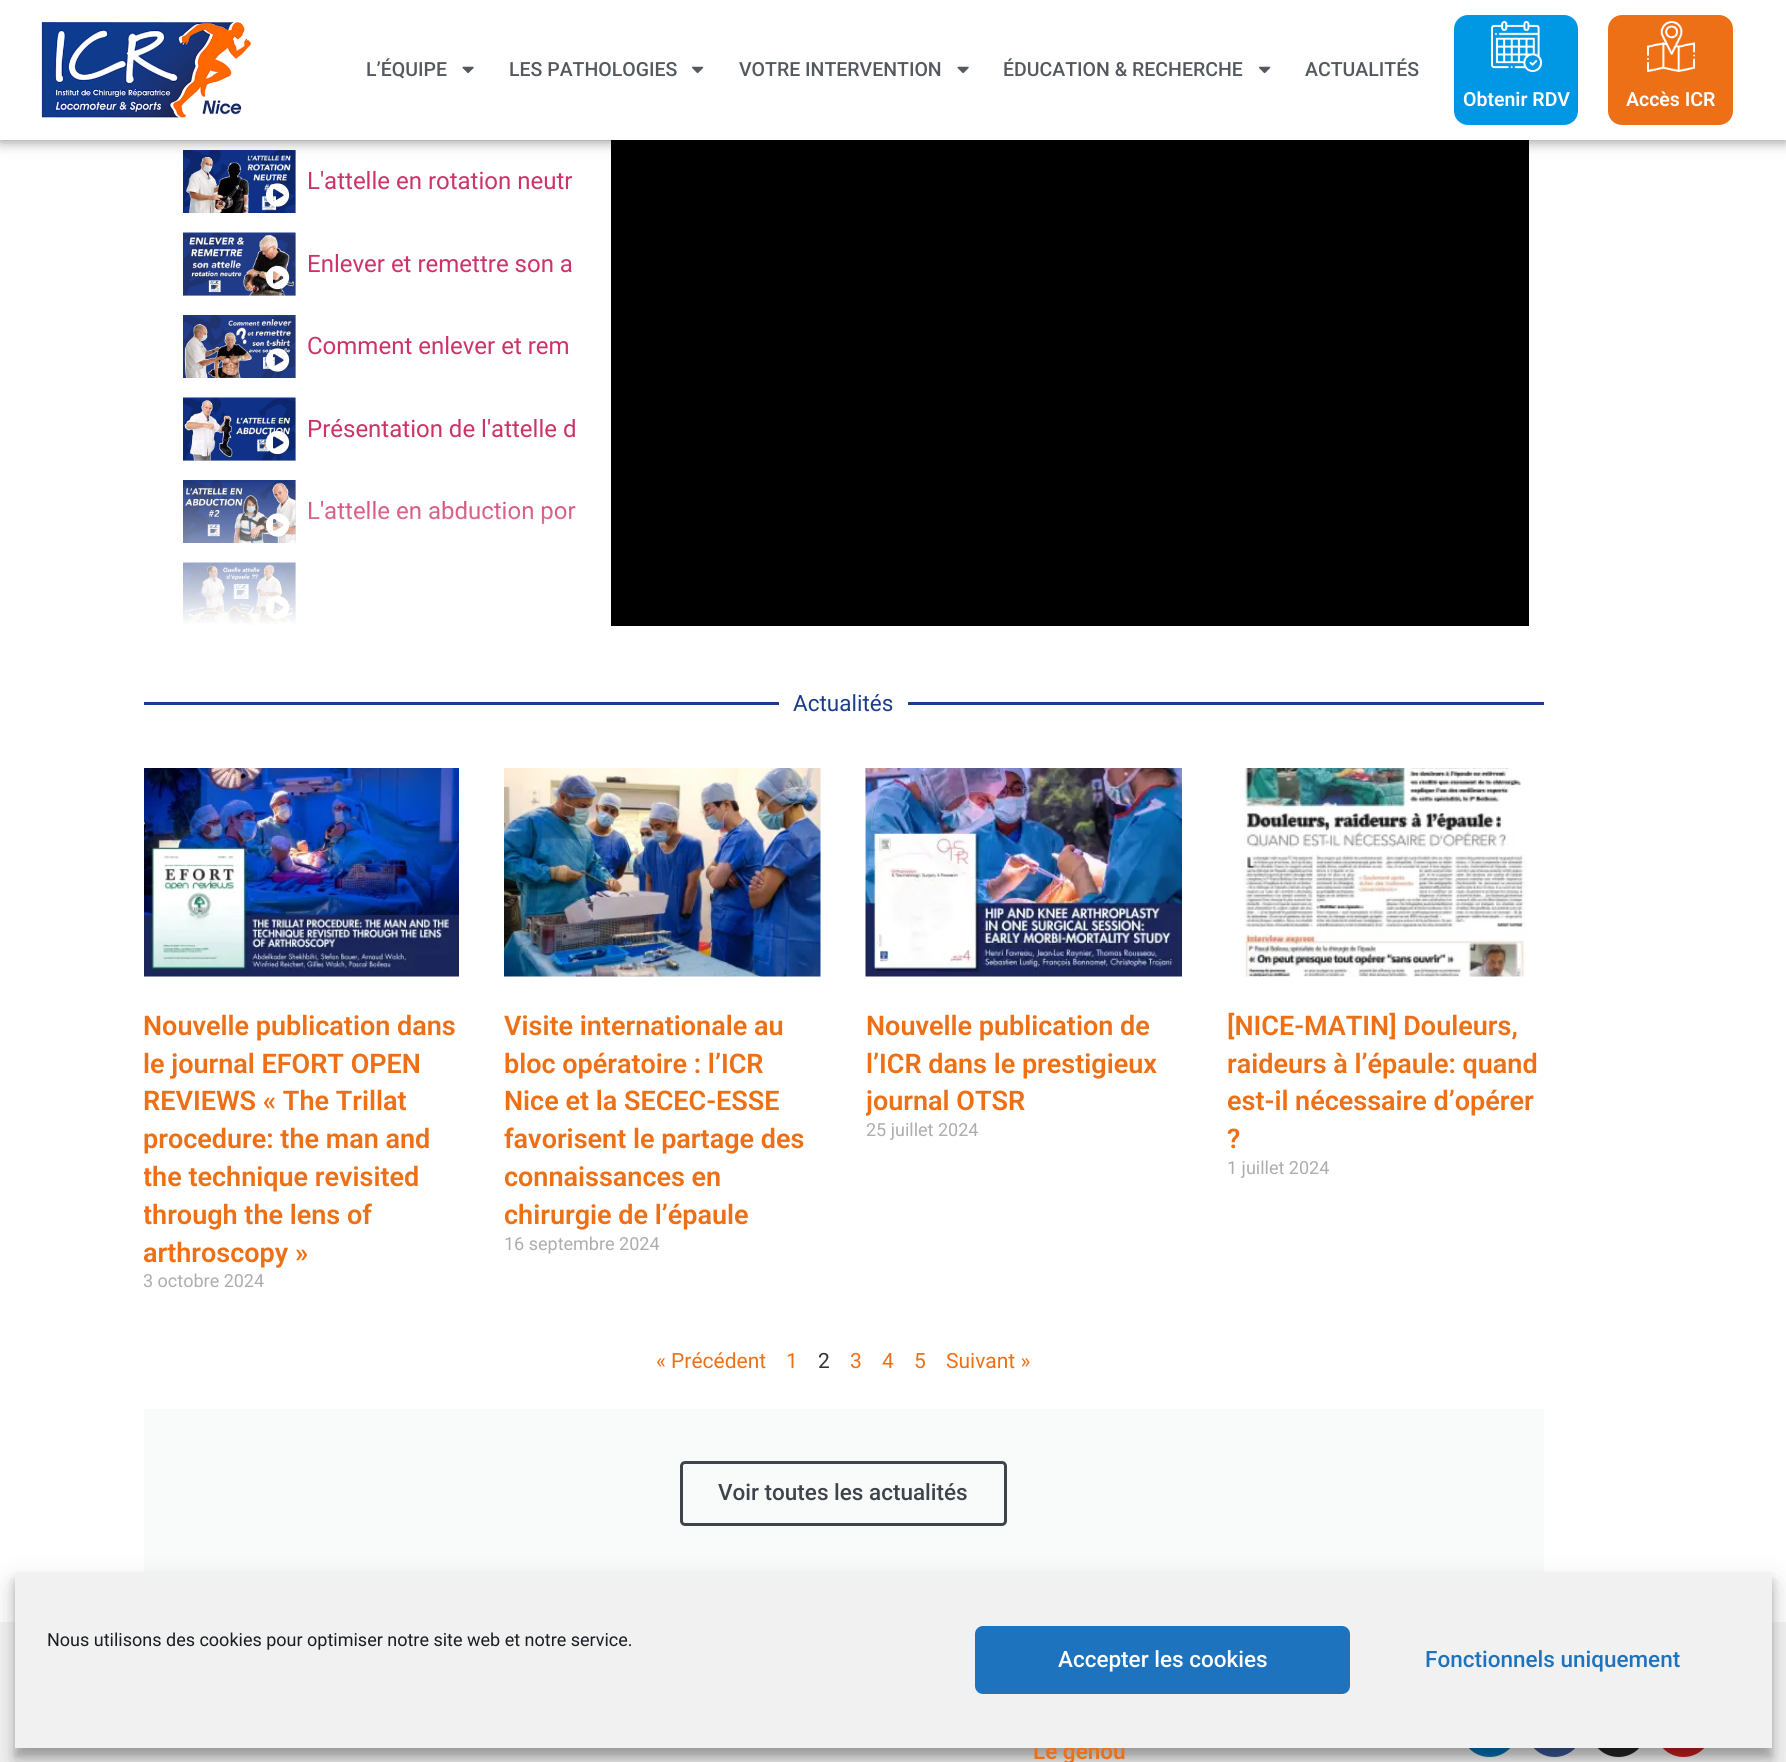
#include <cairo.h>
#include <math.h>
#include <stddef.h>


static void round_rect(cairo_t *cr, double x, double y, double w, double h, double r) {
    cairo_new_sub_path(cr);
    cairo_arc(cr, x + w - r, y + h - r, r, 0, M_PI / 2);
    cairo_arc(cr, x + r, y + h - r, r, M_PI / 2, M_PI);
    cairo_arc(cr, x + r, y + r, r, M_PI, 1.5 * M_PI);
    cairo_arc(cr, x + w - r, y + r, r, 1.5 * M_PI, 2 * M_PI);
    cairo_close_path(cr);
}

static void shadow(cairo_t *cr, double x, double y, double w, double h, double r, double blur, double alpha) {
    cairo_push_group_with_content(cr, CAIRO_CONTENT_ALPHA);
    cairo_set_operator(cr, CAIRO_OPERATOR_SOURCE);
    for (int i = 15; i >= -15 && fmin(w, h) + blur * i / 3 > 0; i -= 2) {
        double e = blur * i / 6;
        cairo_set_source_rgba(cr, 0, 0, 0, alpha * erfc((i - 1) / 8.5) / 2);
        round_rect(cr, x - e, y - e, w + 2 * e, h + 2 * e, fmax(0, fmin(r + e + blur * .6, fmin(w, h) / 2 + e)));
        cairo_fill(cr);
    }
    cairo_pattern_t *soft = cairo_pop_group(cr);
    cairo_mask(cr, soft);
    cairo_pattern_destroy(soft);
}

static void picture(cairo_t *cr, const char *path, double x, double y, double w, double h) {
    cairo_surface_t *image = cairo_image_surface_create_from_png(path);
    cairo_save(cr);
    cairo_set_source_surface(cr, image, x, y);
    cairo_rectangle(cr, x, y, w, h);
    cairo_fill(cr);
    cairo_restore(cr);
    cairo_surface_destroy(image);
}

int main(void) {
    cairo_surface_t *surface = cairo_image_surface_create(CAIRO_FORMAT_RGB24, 1786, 1762);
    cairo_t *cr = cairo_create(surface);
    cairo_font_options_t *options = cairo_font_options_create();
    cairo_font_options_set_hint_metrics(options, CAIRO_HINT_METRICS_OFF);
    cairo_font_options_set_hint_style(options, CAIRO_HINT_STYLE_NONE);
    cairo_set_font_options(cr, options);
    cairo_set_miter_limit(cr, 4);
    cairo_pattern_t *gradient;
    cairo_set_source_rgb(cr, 1, 1, 1);
    cairo_paint(cr);
    cairo_set_source_rgb(cr, 0.945, 0.949, 0.953);
    cairo_rectangle(cr, 159, 140, 452, 1);
    cairo_fill(cr);
    cairo_set_source_rgb(cr, 0.835, 0.847, 0.863);
    cairo_rectangle(cr, 295, 150, 1, 63);
    cairo_fill(cr);
    picture(cr, "img6.png", 183, 150, 113, 63);
    cairo_set_source_rgb(cr, 0, 0, 0);
    cairo_rectangle(cr, 611, 140, 918, 486);
    cairo_fill(cr);
    cairo_set_source_rgb(cr, 0, 0, 0);
    shadow(cr, 0, 0, 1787, 140, 0, 7.5, 0.5);
    cairo_set_source_rgb(cr, 1, 1, 1);
    cairo_rectangle(cr, 0, 0, 1786, 140);
    cairo_fill(cr);
    picture(cr, "img1.png", 41, 22, 210, 96);
    cairo_select_font_face(cr, "Roboto Medium", CAIRO_FONT_SLANT_NORMAL, CAIRO_FONT_WEIGHT_NORMAL);
    cairo_set_font_size(cr, 19.5);
    cairo_set_source_rgb(cr, 0.329, 0.349, 0.373);
    cairo_move_to(cr, 366, 76);
    cairo_show_text(cr, "L’ÉQUIPE");
    picture(cr, "img2.png", 462, 66, 12, 8);
    cairo_move_to(cr, 509, 76);
    cairo_show_text(cr, "LES PATHOLOGIES");
    picture(cr, "img3.png", 692, 66, 12, 8);
    cairo_move_to(cr, 739, 76);
    cairo_show_text(cr, "VOTRE INTERVENTION");
    picture(cr, "img2.png", 957, 66, 12, 8);
    cairo_move_to(cr, 1003, 76);
    cairo_show_text(cr, "ÉDUCATION & RECHERCHE");
    picture(cr, "img3.png", 1259, 66, 12, 8);
    cairo_move_to(cr, 1305, 76);
    cairo_show_text(cr, "ACTUALITÉS");
    cairo_set_source_rgb(cr, 0, 0.592, 0.894);
    round_rect(cr, 1454, 15, 124, 110, 14);
    cairo_fill(cr);
    picture(cr, "img4.png", 1491, 21, 51, 51);
    cairo_select_font_face(cr, "Roboto SemiBold", CAIRO_FONT_SLANT_NORMAL, CAIRO_FONT_WEIGHT_NORMAL);
    cairo_set_source_rgb(cr, 1, 1, 1);
    cairo_move_to(cr, 1463, 106);
    cairo_show_text(cr, "Obtenir RDV");
    cairo_set_source_rgb(cr, 0.929, 0.439, 0.09);
    round_rect(cr, 1608, 15, 125, 110, 14);
    cairo_fill(cr);
    picture(cr, "img5.png", 1647, 21, 49, 51);
    cairo_set_source_rgb(cr, 1, 1, 1);
    cairo_move_to(cr, 1626, 106);
    cairo_show_text(cr, "Accès ICR");
    picture(cr, "img7.png", 265, 183, 25, 24);
    cairo_select_font_face(cr, "Roboto", CAIRO_FONT_SLANT_NORMAL, CAIRO_FONT_WEIGHT_NORMAL);
    cairo_set_font_size(cr, 24);
    cairo_set_source_rgb(cr, 0.8, 0.2, 0.4);
    cairo_move_to(cr, 307, 189);
    cairo_show_text(cr, "L'attelle en rotation neutr");
    cairo_set_source_rgb(cr, 0.835, 0.847, 0.863);
    cairo_rectangle(cr, 183, 233, 113, 63);
    cairo_fill(cr);
    picture(cr, "img8.png", 183, 232, 113, 64);
    picture(cr, "img9.png", 265, 265, 25, 25);
    cairo_set_source_rgb(cr, 0.8, 0.2, 0.4);
    cairo_move_to(cr, 307, 272);
    cairo_show_text(cr, "Enlever et remettre son a");
    cairo_set_source_rgb(cr, 0.835, 0.847, 0.863);
    cairo_rectangle(cr, 295, 315, 1, 63);
    cairo_fill(cr);
    picture(cr, "img10.png", 183, 315, 113, 63);
    picture(cr, "img11.png", 265, 348, 25, 24);
    cairo_set_source_rgb(cr, 0.8, 0.2, 0.4);
    cairo_move_to(cr, 307, 354);
    cairo_show_text(cr, "Comment enlever et rem");
    cairo_set_source_rgb(cr, 0.835, 0.847, 0.863);
    cairo_rectangle(cr, 183, 398, 113, 63);
    cairo_fill(cr);
    picture(cr, "img12.png", 183, 397, 113, 64);
    picture(cr, "img13.png", 265, 430, 25, 25);
    cairo_set_source_rgb(cr, 0.8, 0.2, 0.4);
    cairo_move_to(cr, 307, 437);
    cairo_show_text(cr, "Présentation de l'attelle d");
    cairo_set_source_rgb(cr, 0.835, 0.847, 0.863);
    cairo_rectangle(cr, 295, 480, 1, 63);
    cairo_fill(cr);
    picture(cr, "img14.png", 183, 480, 113, 63);
    picture(cr, "img15.png", 265, 513, 25, 24);
    cairo_set_source_rgb(cr, 0.8, 0.2, 0.4);
    cairo_move_to(cr, 307, 519);
    cairo_show_text(cr, "L'attelle en abduction por");
    cairo_set_source_rgb(cr, 0.835, 0.847, 0.863);
    cairo_rectangle(cr, 295, 563, 1, 62);
    cairo_fill(cr);
    picture(cr, "img16.png", 183, 562, 113, 63);
    picture(cr, "img17.png", 265, 595, 25, 25);
    gradient = cairo_pattern_create_linear(385, 479, 385, 626);
    cairo_pattern_add_color_stop_rgba(gradient, 0, 1, 1, 1, 0);
    cairo_pattern_add_color_stop_rgba(gradient, 1, 1, 1, 1, 1);
    cairo_set_source(cr, gradient);
    cairo_pattern_destroy(gradient);
    cairo_rectangle(cr, 183, 482, 392, 143);
    cairo_fill(cr);
    cairo_set_source_rgb(cr, 0.102, 0.235, 0.541);
    cairo_rectangle(cr, 144, 702, 635, 3);
    cairo_fill(cr);
    cairo_set_font_size(cr, 22.5);
    cairo_move_to(cr, 793, 711);
    cairo_show_text(cr, "Actualités");
    cairo_rectangle(cr, 908, 702, 636, 3);
    cairo_fill(cr);
    picture(cr, "img18.png", 144, 768, 315, 209);
    cairo_select_font_face(cr, "Roboto SemiBold", CAIRO_FONT_SLANT_NORMAL, CAIRO_FONT_WEIGHT_NORMAL);
    cairo_set_font_size(cr, 27);
    cairo_set_source_rgb(cr, 0.929, 0.439, 0.09);
    cairo_move_to(cr, 143, 1035);
    cairo_show_text(cr, "Nouvelle publication dans");
    cairo_move_to(cr, 143, 1073);
    cairo_show_text(cr, "le journal EFORT OPEN");
    cairo_move_to(cr, 143, 1110);
    cairo_show_text(cr, "REVIEWS « The Trillat");
    cairo_move_to(cr, 143, 1148);
    cairo_show_text(cr, "procedure: the man and");
    cairo_save(cr);
    cairo_rectangle(cr, 144, 768, 315, 546);
    cairo_clip(cr);
    cairo_move_to(cr, 143, 1186);
    cairo_show_text(cr, "the technique revisited");
    cairo_move_to(cr, 143, 1224);
    cairo_show_text(cr, "through the lens of");
    cairo_restore(cr);
    cairo_move_to(cr, 143, 1262);
    cairo_show_text(cr, "arthroscopy »");
    cairo_select_font_face(cr, "Roboto", CAIRO_FONT_SLANT_NORMAL, CAIRO_FONT_WEIGHT_NORMAL);
    cairo_set_font_size(cr, 18);
    cairo_set_source_rgb(cr, 0.678, 0.678, 0.678);
    cairo_move_to(cr, 143, 1287);
    cairo_show_text(cr, "3 octobre 2024");
    picture(cr, "img19.png", 504, 768, 317, 209);
    cairo_select_font_face(cr, "Roboto SemiBold", CAIRO_FONT_SLANT_NORMAL, CAIRO_FONT_WEIGHT_NORMAL);
    cairo_set_font_size(cr, 27);
    cairo_set_source_rgb(cr, 0.929, 0.439, 0.09);
    cairo_move_to(cr, 504, 1035);
    cairo_show_text(cr, "Visite internationale au");
    cairo_move_to(cr, 504, 1073);
    cairo_show_text(cr, "bloc opératoire : l’ICR");
    cairo_move_to(cr, 504, 1110);
    cairo_show_text(cr, "Nice et la SECEC-ESSE");
    cairo_move_to(cr, 504, 1148);
    cairo_show_text(cr, "favorisent le partage des");
    cairo_move_to(cr, 504, 1186);
    cairo_show_text(cr, "connaissances en");
    cairo_move_to(cr, 504, 1224);
    cairo_show_text(cr, "chirurgie de l’épaule");
    cairo_select_font_face(cr, "Roboto", CAIRO_FONT_SLANT_NORMAL, CAIRO_FONT_WEIGHT_NORMAL);
    cairo_set_font_size(cr, 18);
    cairo_set_source_rgb(cr, 0.678, 0.678, 0.678);
    cairo_move_to(cr, 504, 1250);
    cairo_show_text(cr, "16 septembre 2024");
    picture(cr, "img20.png", 865, 768, 317, 209);
    cairo_select_font_face(cr, "Roboto SemiBold", CAIRO_FONT_SLANT_NORMAL, CAIRO_FONT_WEIGHT_NORMAL);
    cairo_set_font_size(cr, 27);
    cairo_set_source_rgb(cr, 0.929, 0.439, 0.09);
    cairo_move_to(cr, 866, 1035);
    cairo_show_text(cr, "Nouvelle publication de");
    cairo_move_to(cr, 866, 1073);
    cairo_show_text(cr, "l’ICR dans le prestigieux");
    cairo_save(cr);
    cairo_rectangle(cr, 866, 768, 316, 546);
    cairo_clip(cr);
    cairo_move_to(cr, 866, 1110);
    cairo_show_text(cr, "journal OTSR");
    cairo_restore(cr);
    cairo_select_font_face(cr, "Roboto", CAIRO_FONT_SLANT_NORMAL, CAIRO_FONT_WEIGHT_NORMAL);
    cairo_set_font_size(cr, 18);
    cairo_set_source_rgb(cr, 0.678, 0.678, 0.678);
    cairo_move_to(cr, 866, 1136);
    cairo_show_text(cr, "25 juillet 2024");
    picture(cr, "img21.png", 1243, 768, 283, 209);
    cairo_select_font_face(cr, "Roboto SemiBold", CAIRO_FONT_SLANT_NORMAL, CAIRO_FONT_WEIGHT_NORMAL);
    cairo_set_font_size(cr, 27);
    cairo_set_source_rgb(cr, 0.929, 0.439, 0.09);
    cairo_move_to(cr, 1227, 1035);
    cairo_show_text(cr, "[NICE-MATIN] Douleurs,");
    cairo_move_to(cr, 1227, 1073);
    cairo_show_text(cr, "raideurs à l’épaule: quand");
    cairo_move_to(cr, 1227, 1110);
    cairo_show_text(cr, "est-il nécessaire d’opérer");
    cairo_move_to(cr, 1227, 1148);
    cairo_show_text(cr, "?");
    cairo_select_font_face(cr, "Roboto", CAIRO_FONT_SLANT_NORMAL, CAIRO_FONT_WEIGHT_NORMAL);
    cairo_set_font_size(cr, 18);
    cairo_set_source_rgb(cr, 0.678, 0.678, 0.678);
    cairo_move_to(cr, 1227, 1174);
    cairo_show_text(cr, "1 juillet 2024");
    cairo_set_font_size(cr, 21);
    cairo_set_source_rgb(cr, 0.929, 0.439, 0.09);
    cairo_move_to(cr, 656, 1368);
    cairo_show_text(cr, "« Précédent");
    cairo_move_to(cr, 786, 1368);
    cairo_show_text(cr, "1");
    cairo_set_source_rgb(cr, 0.2, 0.2, 0.2);
    cairo_move_to(cr, 818, 1368);
    cairo_show_text(cr, "2");
    cairo_set_source_rgb(cr, 0.929, 0.439, 0.09);
    cairo_move_to(cr, 850, 1368);
    cairo_show_text(cr, "3");
    cairo_move_to(cr, 882, 1368);
    cairo_show_text(cr, "4");
    cairo_move_to(cr, 914, 1368);
    cairo_show_text(cr, "5");
    cairo_move_to(cr, 946, 1368);
    cairo_show_text(cr, "Suivant »");
    cairo_set_source_rgb(cr, 0.976, 0.98, 0.98);
    cairo_rectangle(cr, 144, 1409, 1400, 163);
    cairo_fill(cr);
    round_rect(cr, 681.5, 1462.5, 324, 62, 3.5);
    cairo_set_source_rgb(cr, 0.247, 0.267, 0.294);
    cairo_set_line_width(cr, 3);
    cairo_stroke(cr);
    cairo_select_font_face(cr, "Roboto Medium", CAIRO_FONT_SLANT_NORMAL, CAIRO_FONT_WEIGHT_NORMAL);
    cairo_set_font_size(cr, 22.5);
    cairo_move_to(cr, 718, 1500);
    cairo_show_text(cr, "Voir toutes les actualités");
    cairo_set_source_rgb(cr, 0.957, 0.957, 0.957);
    cairo_rectangle(cr, 0, 1622, 1786, 140);
    cairo_fill(cr);
    cairo_set_source_rgb(cr, 0, 0.467, 0.71);
    cairo_arc(cr, 1489.5, 1728.5, 28.5, 0, 2 * M_PI);
    cairo_fill(cr);
    cairo_set_source_rgb(cr, 0.231, 0.349, 0.596);
    cairo_arc(cr, 1554.5, 1728.5, 28.5, 0, 2 * M_PI);
    cairo_fill(cr);
    cairo_set_source_rgb(cr, 0.149, 0.149, 0.149);
    cairo_arc(cr, 1618.5, 1728.5, 28.5, 0, 2 * M_PI);
    cairo_fill(cr);
    cairo_set_source_rgb(cr, 0.804, 0.125, 0.122);
    cairo_arc(cr, 1683.5, 1728.5, 28.5, 0, 2 * M_PI);
    cairo_fill(cr);
    cairo_set_source_rgb(cr, 0, 0, 0);
    shadow(cr, 15, 1581, 1757, 176, 0, 4.5, 0.23);
    shadow(cr, 15, 1587, 1757, 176, 0, 15, 0.19);
    cairo_select_font_face(cr, "Roboto SemiBold", CAIRO_FONT_SLANT_NORMAL, CAIRO_FONT_WEIGHT_NORMAL);
    cairo_set_source_rgb(cr, 0.929, 0.439, 0.09);
    cairo_move_to(cr, 1033, 1759);
    cairo_show_text(cr, "Le genou");
    cairo_set_source_rgb(cr, 0.945, 0.945, 0.945);
    cairo_rectangle(cr, 15, 1572, 1757, 176);
    cairo_fill(cr);
    cairo_select_font_face(cr, "Roboto", CAIRO_FONT_SLANT_NORMAL, CAIRO_FONT_WEIGHT_NORMAL);
    cairo_set_font_size(cr, 18);
    cairo_set_source_rgb(cr, 0.098, 0.118, 0.137);
    cairo_move_to(cr, 47, 1646);
    cairo_show_text(cr, "Nous utilisons des cookies pour optimiser notre site web et notre service.");
    cairo_set_source_rgb(cr, 0.118, 0.451, 0.745);
    round_rect(cr, 976, 1627, 373, 66, 7);
    cairo_fill_preserve(cr);
    cairo_set_line_width(cr, 2);
    cairo_stroke(cr);
    cairo_select_font_face(cr, "Roboto Medium", CAIRO_FONT_SLANT_NORMAL, CAIRO_FONT_WEIGHT_NORMAL);
    cairo_set_font_size(cr, 22.5);
    cairo_set_source_rgb(cr, 1, 1, 1);
    cairo_move_to(cr, 1058, 1667);
    cairo_show_text(cr, "Accepter les cookies");
    cairo_set_source_rgb(cr, 0.118, 0.451, 0.745);
    cairo_move_to(cr, 1425, 1667);
    cairo_show_text(cr, "Fonctionnels uniquement");
    cairo_surface_write_to_png(surface, "page.png");
    cairo_font_options_destroy(options);
    cairo_destroy(cr);
    cairo_surface_destroy(surface);
    return 0;
}
